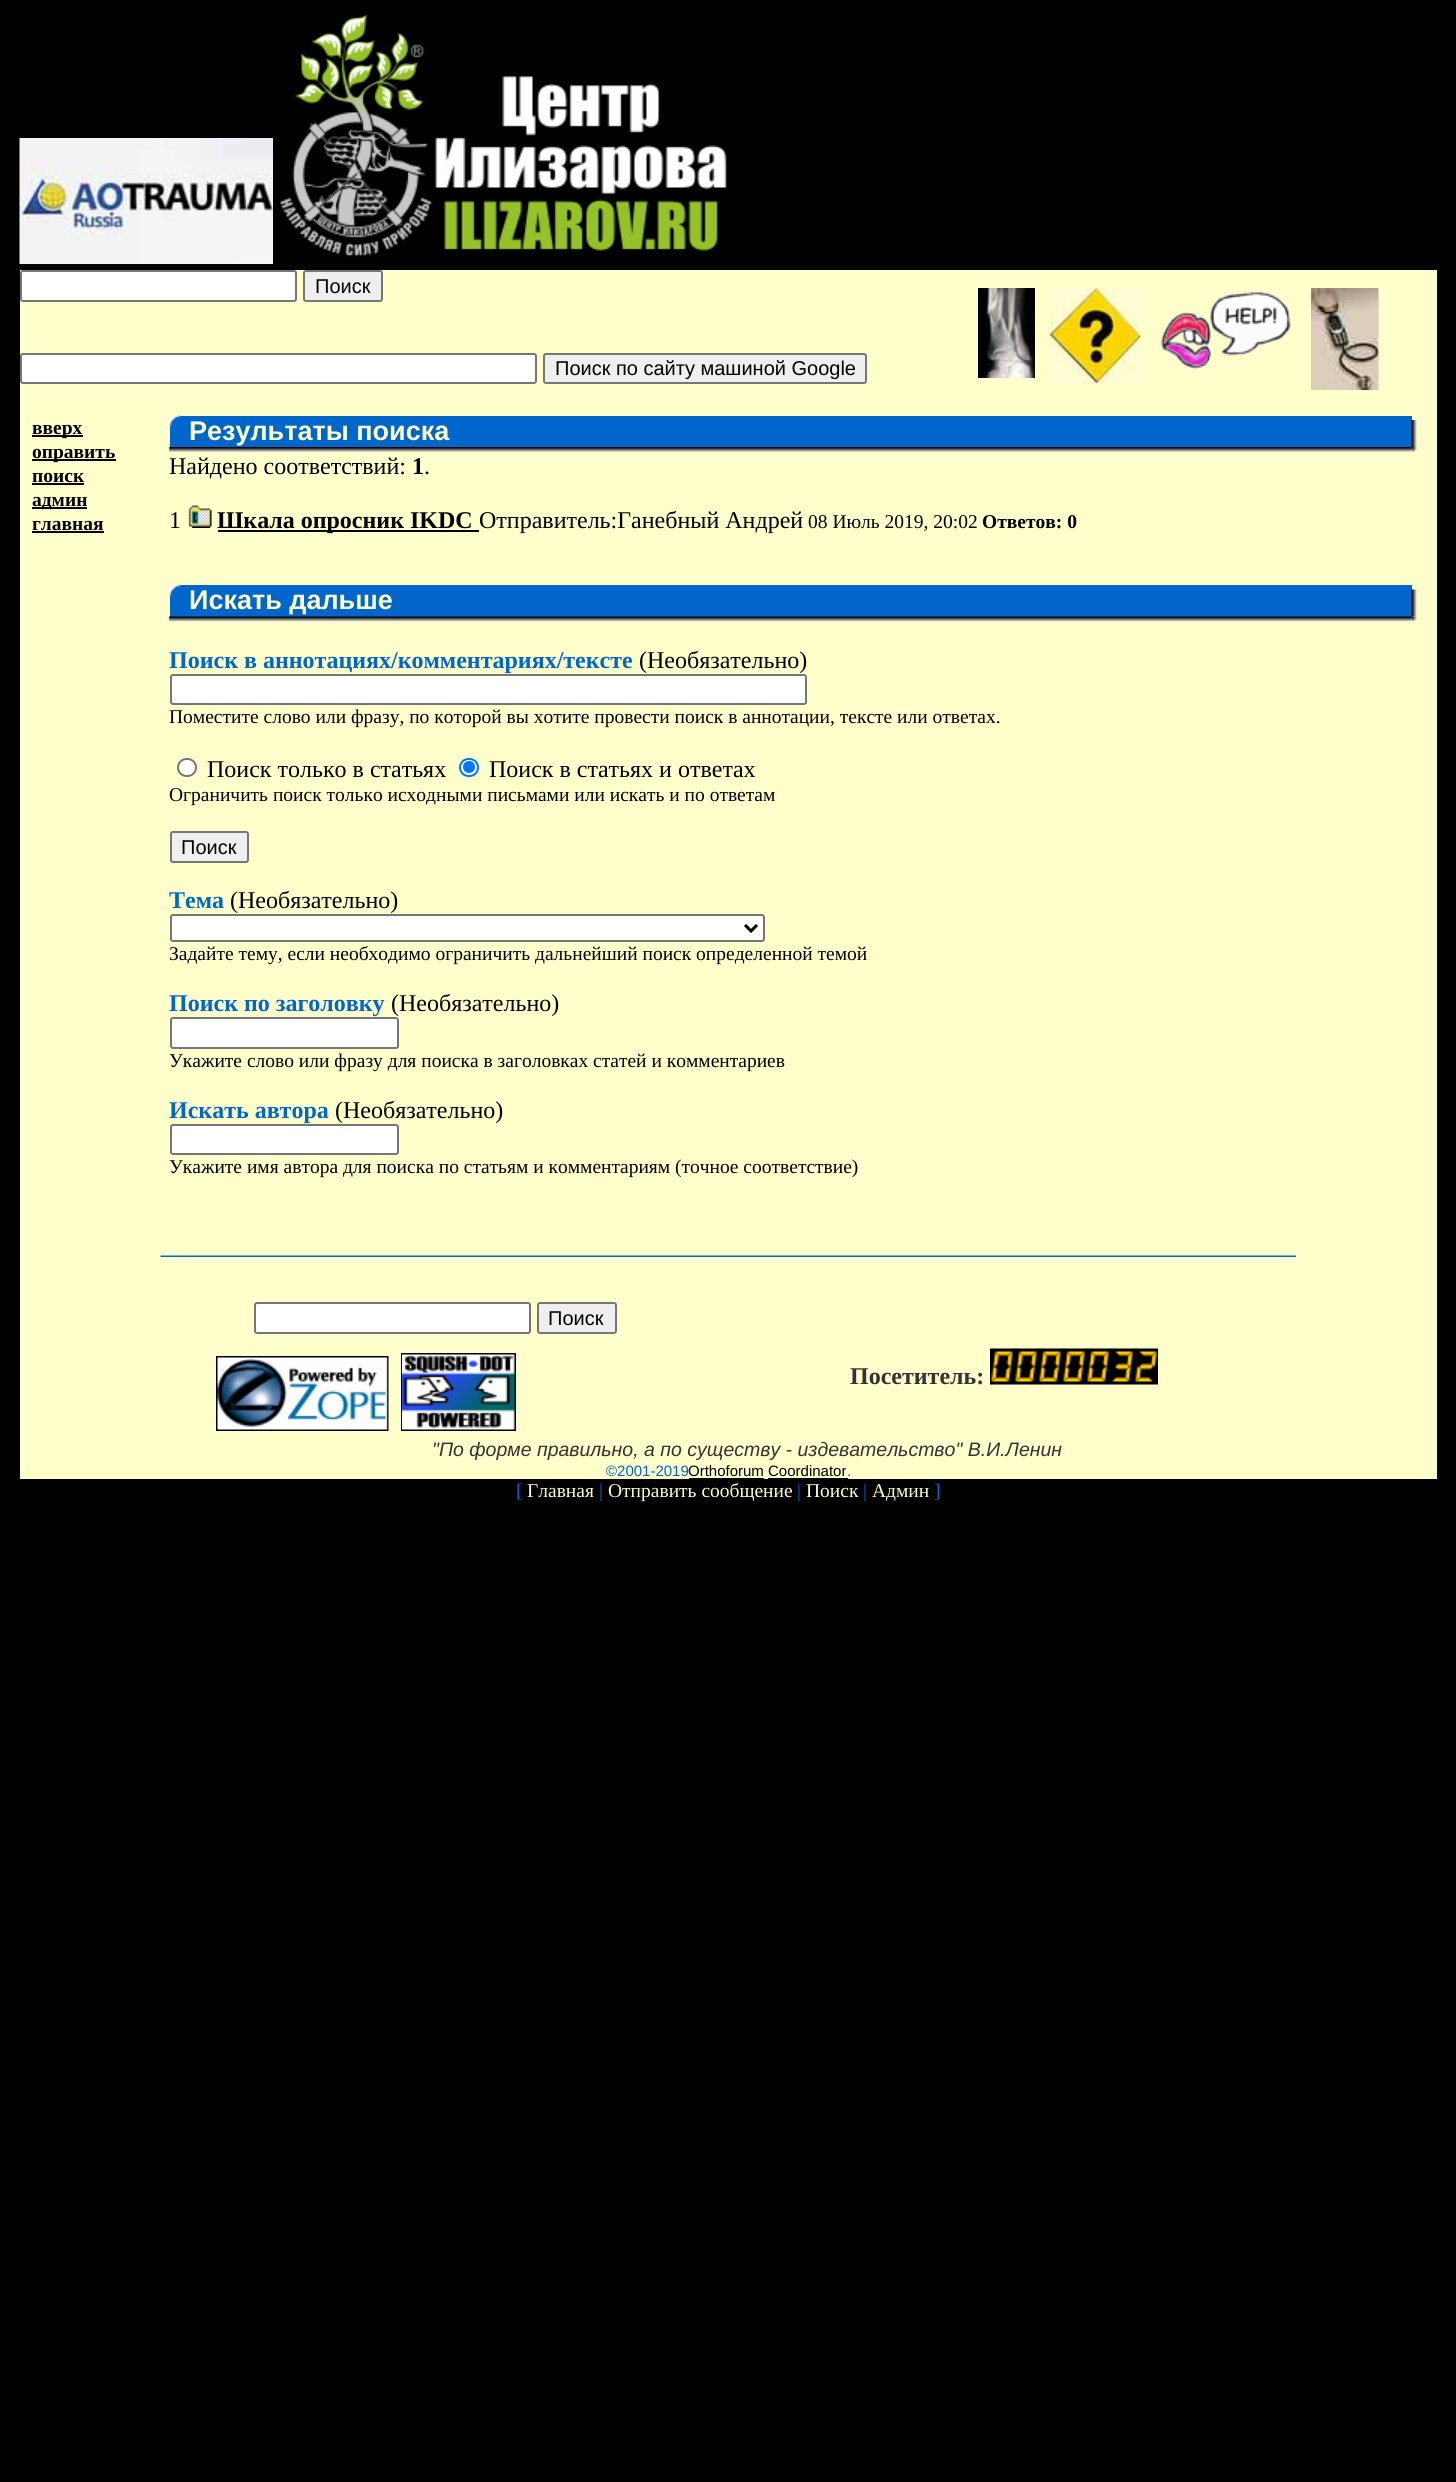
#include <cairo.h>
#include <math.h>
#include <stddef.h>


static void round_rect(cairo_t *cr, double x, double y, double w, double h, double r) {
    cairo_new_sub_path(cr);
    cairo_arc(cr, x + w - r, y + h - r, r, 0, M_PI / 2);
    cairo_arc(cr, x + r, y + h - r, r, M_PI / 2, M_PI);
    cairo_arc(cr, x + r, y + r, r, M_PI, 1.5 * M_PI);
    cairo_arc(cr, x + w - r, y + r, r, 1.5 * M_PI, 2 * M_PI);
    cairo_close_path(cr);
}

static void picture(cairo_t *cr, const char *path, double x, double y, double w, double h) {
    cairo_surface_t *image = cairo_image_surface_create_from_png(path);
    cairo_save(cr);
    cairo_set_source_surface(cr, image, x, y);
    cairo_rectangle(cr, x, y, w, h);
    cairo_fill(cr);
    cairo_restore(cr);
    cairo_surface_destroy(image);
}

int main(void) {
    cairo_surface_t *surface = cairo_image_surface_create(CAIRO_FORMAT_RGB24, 1456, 2482);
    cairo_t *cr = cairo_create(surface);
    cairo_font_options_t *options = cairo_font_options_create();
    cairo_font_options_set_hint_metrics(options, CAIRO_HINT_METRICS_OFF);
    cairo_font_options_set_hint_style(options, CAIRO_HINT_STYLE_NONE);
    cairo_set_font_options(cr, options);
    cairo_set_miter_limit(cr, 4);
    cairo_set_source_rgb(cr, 0, 0, 0);
    cairo_paint(cr);
    cairo_set_source_rgb(cr, 1, 1, 0.8);
    cairo_rectangle(cr, 20, 270, 1417, 1209);
    cairo_fill(cr);
    picture(cr, "img1.png", 19, 138, 254, 126);
    picture(cr, "img2.png", 279, 14, 448, 243);
    cairo_set_source_rgb(cr, 1, 1, 1);
    round_rect(cr, 21, 271, 275, 30, 2);
    cairo_fill_preserve(cr);
    cairo_set_source_rgb(cr, 0.463, 0.463, 0.463);
    cairo_stroke(cr);
    cairo_set_source_rgb(cr, 0.937, 0.937, 0.937);
    round_rect(cr, 304, 271, 78, 30, 2);
    cairo_fill_preserve(cr);
    cairo_set_source_rgb(cr, 0.463, 0.463, 0.463);
    cairo_stroke(cr);
    cairo_select_font_face(cr, "Liberation Sans", CAIRO_FONT_SLANT_NORMAL, CAIRO_FONT_WEIGHT_NORMAL);
    cairo_set_font_size(cr, 20);
    cairo_set_source_rgb(cr, 0, 0, 0);
    cairo_move_to(cr, 315, 293);
    cairo_show_text(cr, "Поиск");
    cairo_set_source_rgb(cr, 1, 1, 1);
    round_rect(cr, 21, 354, 515, 29, 2);
    cairo_fill_preserve(cr);
    cairo_set_source_rgb(cr, 0.463, 0.463, 0.463);
    cairo_stroke(cr);
    cairo_set_source_rgb(cr, 0.937, 0.937, 0.937);
    round_rect(cr, 544, 354, 322, 29, 2);
    cairo_fill_preserve(cr);
    cairo_set_source_rgb(cr, 0.463, 0.463, 0.463);
    cairo_stroke(cr);
    cairo_set_source_rgb(cr, 0, 0, 0);
    cairo_move_to(cr, 555, 375);
    cairo_show_text(cr, "Поиск по сайту машиной Google");
    picture(cr, "img3.png", 978, 288, 57, 90);
    picture(cr, "img4.png", 1050, 288, 92, 96);
    picture(cr, "img5.png", 1160, 292, 131, 78);
    picture(cr, "img6.png", 1311, 288, 68, 102);
    cairo_rectangle(cr, 32, 435, 51, 2);
    cairo_fill(cr);
    cairo_select_font_face(cr, "Liberation Serif", CAIRO_FONT_SLANT_NORMAL, CAIRO_FONT_WEIGHT_BOLD);
    cairo_set_font_size(cr, 19.5);
    cairo_move_to(cr, 32, 434);
    cairo_show_text(cr, "вверх");
    cairo_rectangle(cr, 32, 459, 84, 2);
    cairo_fill(cr);
    cairo_move_to(cr, 32, 458);
    cairo_show_text(cr, "оправить");
    cairo_move_to(cr, 32, 482);
    cairo_show_text(cr, "поиск");
    cairo_rectangle(cr, 32, 483, 52, 2);
    cairo_fill(cr);
    cairo_rectangle(cr, 32, 507, 55, 2);
    cairo_fill(cr);
    cairo_move_to(cr, 32, 506);
    cairo_show_text(cr, "админ");
    cairo_move_to(cr, 32, 530);
    cairo_show_text(cr, "главная");
    cairo_rectangle(cr, 32, 531, 72, 2);
    cairo_fill(cr);
    cairo_set_source_rgb(cr, 0, 0.4, 0.8);
    cairo_rectangle(cr, 170, 416, 1242, 31);
    cairo_fill(cr);
    picture(cr, "img7.png", 169, 415, 12, 12);
    cairo_select_font_face(cr, "Liberation Sans", CAIRO_FONT_SLANT_NORMAL, CAIRO_FONT_WEIGHT_BOLD);
    cairo_set_font_size(cr, 27);
    cairo_set_source_rgb(cr, 1, 1, 0.8);
    cairo_move_to(cr, 189, 440);
    cairo_show_text(cr, "Результаты поиска");
    picture(cr, "img8.png", 1411, 420, 6, 27);
    picture(cr, "img9.png", 169, 447, 1243, 5);
    picture(cr, "img10.png", 169, 447, 2, 5);
    picture(cr, "img11.png", 1411, 447, 6, 5);
    cairo_select_font_face(cr, "Liberation Serif", CAIRO_FONT_SLANT_NORMAL, CAIRO_FONT_WEIGHT_NORMAL);
    cairo_set_font_size(cr, 24);
    cairo_set_source_rgb(cr, 0, 0, 0);
    cairo_move_to(cr, 169, 474);
    cairo_show_text(cr, "Найдено соответствий:");
    cairo_select_font_face(cr, "Liberation Serif", CAIRO_FONT_SLANT_NORMAL, CAIRO_FONT_WEIGHT_BOLD);
    cairo_move_to(cr, 412, 474);
    cairo_show_text(cr, "1");
    cairo_select_font_face(cr, "Liberation Serif", CAIRO_FONT_SLANT_NORMAL, CAIRO_FONT_WEIGHT_NORMAL);
    cairo_move_to(cr, 424, 474);
    cairo_show_text(cr, ".");
    cairo_move_to(cr, 169, 528);
    cairo_show_text(cr, "1");
    picture(cr, "img12.png", 188, 505, 24, 23);
    cairo_rectangle(cr, 218, 530, 261, 2);
    cairo_fill(cr);
    cairo_select_font_face(cr, "Liberation Serif", CAIRO_FONT_SLANT_NORMAL, CAIRO_FONT_WEIGHT_BOLD);
    cairo_move_to(cr, 217, 528);
    cairo_show_text(cr, "Шкала опросник IKDC");
    cairo_select_font_face(cr, "Liberation Serif", CAIRO_FONT_SLANT_NORMAL, CAIRO_FONT_WEIGHT_NORMAL);
    cairo_move_to(cr, 479, 528);
    cairo_show_text(cr, "Отправитель:Ганебный Андрей");
    cairo_set_font_size(cr, 19.5);
    cairo_move_to(cr, 808, 528);
    cairo_show_text(cr, "08 Июль 2019, 20:02");
    cairo_select_font_face(cr, "Liberation Serif", CAIRO_FONT_SLANT_NORMAL, CAIRO_FONT_WEIGHT_BOLD);
    cairo_move_to(cr, 982, 528);
    cairo_show_text(cr, "Ответов: 0");
    cairo_set_source_rgb(cr, 0, 0.4, 0.8);
    cairo_rectangle(cr, 170, 585, 1242, 32);
    cairo_fill(cr);
    picture(cr, "img13.png", 169, 585, 12, 11);
    cairo_select_font_face(cr, "Liberation Sans", CAIRO_FONT_SLANT_NORMAL, CAIRO_FONT_WEIGHT_BOLD);
    cairo_set_font_size(cr, 27);
    cairo_set_source_rgb(cr, 1, 1, 0.8);
    cairo_move_to(cr, 189, 609);
    cairo_show_text(cr, "Искать дальше");
    picture(cr, "img15.png", 169, 616, 1243, 6);
    picture(cr, "img14.png", 1411, 589, 6, 28);
    picture(cr, "img16.png", 169, 616, 2, 6);
    picture(cr, "img17.png", 1411, 616, 6, 6);
    cairo_select_font_face(cr, "Liberation Serif", CAIRO_FONT_SLANT_NORMAL, CAIRO_FONT_WEIGHT_BOLD);
    cairo_set_font_size(cr, 24);
    cairo_set_source_rgb(cr, 0, 0.4, 0.8);
    cairo_move_to(cr, 169, 668);
    cairo_show_text(cr, "Поиск в аннотациях/комментариях/тексте");
    cairo_select_font_face(cr, "Liberation Serif", CAIRO_FONT_SLANT_NORMAL, CAIRO_FONT_WEIGHT_NORMAL);
    cairo_set_source_rgb(cr, 0, 0, 0);
    cairo_move_to(cr, 639, 668);
    cairo_show_text(cr, "(Необязательно)");
    cairo_set_source_rgb(cr, 1, 1, 1);
    round_rect(cr, 171, 675, 635, 29, 2);
    cairo_fill_preserve(cr);
    cairo_set_source_rgb(cr, 0.463, 0.463, 0.463);
    cairo_stroke(cr);
    cairo_set_font_size(cr, 19.5);
    cairo_set_source_rgb(cr, 0, 0, 0);
    cairo_move_to(cr, 169, 723);
    cairo_show_text(cr, "Поместите слово или фразу, по которой вы хотите провести поиск в аннотации, тексте или ответах.");
    cairo_set_source_rgb(cr, 1, 1, 1);
    round_rect(cr, 178, 759, 18, 17, 8.5);
    cairo_fill_preserve(cr);
    cairo_set_source_rgb(cr, 0.463, 0.463, 0.463);
    cairo_stroke(cr);
    cairo_set_font_size(cr, 24);
    cairo_set_source_rgb(cr, 0, 0, 0);
    cairo_move_to(cr, 207, 777);
    cairo_show_text(cr, "Поиск только в статьях");
    cairo_set_source_rgb(cr, 1, 1, 1);
    round_rect(cr, 460, 759, 18, 17, 8.5);
    cairo_fill_preserve(cr);
    cairo_set_source_rgb(cr, 0, 0.459, 1);
    cairo_stroke(cr);
    cairo_arc(cr, 469, 767, 6, 0, 2 * M_PI);
    cairo_fill(cr);
    cairo_set_source_rgb(cr, 0, 0, 0);
    cairo_move_to(cr, 489, 777);
    cairo_show_text(cr, "Поиск в статьях и ответах");
    cairo_set_font_size(cr, 19.5);
    cairo_move_to(cr, 169, 801);
    cairo_show_text(cr, "Ограничить поиск только исходными письмами или искать и по ответам");
    cairo_set_source_rgb(cr, 0.937, 0.937, 0.937);
    round_rect(cr, 171, 832, 77, 30, 2);
    cairo_fill_preserve(cr);
    cairo_set_source_rgb(cr, 0.463, 0.463, 0.463);
    cairo_stroke(cr);
    cairo_select_font_face(cr, "Liberation Sans", CAIRO_FONT_SLANT_NORMAL, CAIRO_FONT_WEIGHT_NORMAL);
    cairo_set_font_size(cr, 20);
    cairo_set_source_rgb(cr, 0, 0, 0);
    cairo_move_to(cr, 181, 854);
    cairo_show_text(cr, "Поиск");
    cairo_select_font_face(cr, "Liberation Serif", CAIRO_FONT_SLANT_NORMAL, CAIRO_FONT_WEIGHT_BOLD);
    cairo_set_font_size(cr, 24);
    cairo_set_source_rgb(cr, 0, 0.4, 0.8);
    cairo_move_to(cr, 169, 908);
    cairo_show_text(cr, "Тема");
    cairo_select_font_face(cr, "Liberation Serif", CAIRO_FONT_SLANT_NORMAL, CAIRO_FONT_WEIGHT_NORMAL);
    cairo_set_source_rgb(cr, 0, 0, 0);
    cairo_move_to(cr, 230, 908);
    cairo_show_text(cr, "(Необязательно)");
    cairo_set_source_rgb(cr, 1, 1, 1);
    round_rect(cr, 171, 915, 593, 26, 2);
    cairo_fill_preserve(cr);
    cairo_set_source_rgb(cr, 0.463, 0.463, 0.463);
    cairo_stroke(cr);
    cairo_new_path(cr);
    cairo_move_to(cr, 745, 925);
    cairo_line_to(cr, 751, 931);
    cairo_line_to(cr, 757, 925);
    cairo_set_source_rgb(cr, 0, 0, 0);
    cairo_set_line_width(cr, 3);
    cairo_stroke(cr);
    cairo_set_font_size(cr, 19.5);
    cairo_move_to(cr, 169, 960);
    cairo_show_text(cr, "Задайте тему, если необходимо ограничить дальнейший поиск определенной темой");
    cairo_select_font_face(cr, "Liberation Serif", CAIRO_FONT_SLANT_NORMAL, CAIRO_FONT_WEIGHT_BOLD);
    cairo_set_font_size(cr, 24);
    cairo_set_source_rgb(cr, 0, 0.4, 0.8);
    cairo_move_to(cr, 169, 1011);
    cairo_show_text(cr, "Поиск по заголовку");
    cairo_select_font_face(cr, "Liberation Serif", CAIRO_FONT_SLANT_NORMAL, CAIRO_FONT_WEIGHT_NORMAL);
    cairo_set_source_rgb(cr, 0, 0, 0);
    cairo_move_to(cr, 391, 1011);
    cairo_show_text(cr, "(Необязательно)");
    cairo_set_source_rgb(cr, 1, 1, 1);
    round_rect(cr, 171, 1018, 227, 30, 2);
    cairo_fill_preserve(cr);
    cairo_set_source_rgb(cr, 0.463, 0.463, 0.463);
    cairo_set_line_width(cr, 2);
    cairo_stroke(cr);
    cairo_set_font_size(cr, 19.5);
    cairo_set_source_rgb(cr, 0, 0, 0);
    cairo_move_to(cr, 169, 1067);
    cairo_show_text(cr, "Укажите слово или фразу для поиска в заголовках статей и комментариев");
    cairo_select_font_face(cr, "Liberation Serif", CAIRO_FONT_SLANT_NORMAL, CAIRO_FONT_WEIGHT_BOLD);
    cairo_set_font_size(cr, 24);
    cairo_set_source_rgb(cr, 0, 0.4, 0.8);
    cairo_move_to(cr, 169, 1118);
    cairo_show_text(cr, "Искать автора");
    cairo_select_font_face(cr, "Liberation Serif", CAIRO_FONT_SLANT_NORMAL, CAIRO_FONT_WEIGHT_NORMAL);
    cairo_set_source_rgb(cr, 0, 0, 0);
    cairo_move_to(cr, 335, 1118);
    cairo_show_text(cr, "(Необязательно)");
    cairo_set_source_rgb(cr, 1, 1, 1);
    round_rect(cr, 171, 1125, 227, 29, 2);
    cairo_fill_preserve(cr);
    cairo_set_source_rgb(cr, 0.463, 0.463, 0.463);
    cairo_stroke(cr);
    cairo_set_font_size(cr, 19.5);
    cairo_set_source_rgb(cr, 0, 0, 0);
    cairo_move_to(cr, 169, 1173);
    cairo_show_text(cr, "Укажите имя автора для поиска по статьям и комментариям (точное соответствие)");
    picture(cr, "img18.png", 160, 1255, 1136, 2);
    cairo_set_source_rgb(cr, 1, 1, 1);
    round_rect(cr, 255, 1303, 275, 30, 2);
    cairo_fill_preserve(cr);
    cairo_set_source_rgb(cr, 0.463, 0.463, 0.463);
    cairo_stroke(cr);
    cairo_set_source_rgb(cr, 0.937, 0.937, 0.937);
    round_rect(cr, 538, 1303, 78, 30, 2);
    cairo_fill_preserve(cr);
    cairo_set_source_rgb(cr, 0.463, 0.463, 0.463);
    cairo_stroke(cr);
    cairo_select_font_face(cr, "Liberation Sans", CAIRO_FONT_SLANT_NORMAL, CAIRO_FONT_WEIGHT_NORMAL);
    cairo_set_font_size(cr, 20);
    cairo_set_source_rgb(cr, 0, 0, 0);
    cairo_move_to(cr, 548, 1325);
    cairo_show_text(cr, "Поиск");
    cairo_rectangle(cr, 402, 1354, 113, 76);
    cairo_stroke(cr);
    picture(cr, "img19.png", 216, 1356, 173, 75);
    picture(cr, "img20.png", 402, 1354, 113, 76);
    cairo_select_font_face(cr, "Liberation Serif", CAIRO_FONT_SLANT_NORMAL, CAIRO_FONT_WEIGHT_BOLD);
    cairo_set_font_size(cr, 24);
    cairo_set_source_rgb(cr, 0.2, 0.2, 0.2);
    cairo_move_to(cr, 850, 1384);
    cairo_show_text(cr, "Посетитель:");
    picture(cr, "img21.png", 990, 1348, 24, 37);
    picture(cr, "img21.png", 1014, 1348, 24, 37);
    picture(cr, "img22.png", 1038, 1348, 24, 37);
    picture(cr, "img23.png", 1062, 1348, 24, 37);
    picture(cr, "img23.png", 1086, 1348, 24, 37);
    picture(cr, "img24.png", 1110, 1348, 24, 37);
    picture(cr, "img25.png", 1134, 1348, 24, 37);
    cairo_select_font_face(cr, "Liberation Sans", CAIRO_FONT_SLANT_ITALIC, CAIRO_FONT_WEIGHT_NORMAL);
    cairo_set_font_size(cr, 19.5);
    cairo_move_to(cr, 432, 1456);
    cairo_show_text(cr, "\"По форме правильно, а по существу - издевательство\" В.И.Ленин");
    cairo_select_font_face(cr, "Liberation Sans", CAIRO_FONT_SLANT_NORMAL, CAIRO_FONT_WEIGHT_NORMAL);
    cairo_set_font_size(cr, 15);
    cairo_set_source_rgb(cr, 0, 0.4, 0.8);
    cairo_move_to(cr, 606, 1476);
    cairo_show_text(cr, "©2001-2019");
    cairo_set_source_rgb(cr, 0, 0, 0);
    cairo_move_to(cr, 688, 1476);
    cairo_show_text(cr, "Orthoforum Coordinator");
    cairo_rectangle(cr, 689, 1478, 75, 1);
    cairo_fill(cr);
    cairo_set_source_rgb(cr, 0, 0.4, 0.8);
    cairo_move_to(cr, 847, 1476);
    cairo_show_text(cr, ".");
    cairo_set_source_rgb(cr, 0, 0, 0);
    cairo_rectangle(cr, 768, 1478, 80, 1);
    cairo_fill(cr);
    cairo_select_font_face(cr, "Liberation Serif", CAIRO_FONT_SLANT_NORMAL, CAIRO_FONT_WEIGHT_NORMAL);
    cairo_set_font_size(cr, 19.5);
    cairo_set_source_rgb(cr, 0, 0.4, 0.8);
    cairo_move_to(cr, 516, 1497);
    cairo_show_text(cr, "[");
    cairo_set_source_rgb(cr, 1, 1, 0.8);
    cairo_move_to(cr, 527, 1497);
    cairo_show_text(cr, "Главная");
    cairo_set_source_rgb(cr, 0, 0.4, 0.8);
    cairo_move_to(cr, 599, 1497);
    cairo_show_text(cr, "|");
    cairo_set_source_rgb(cr, 1, 1, 0.8);
    cairo_move_to(cr, 608, 1497);
    cairo_show_text(cr, "Отправить сообщение");
    cairo_set_source_rgb(cr, 0, 0.4, 0.8);
    cairo_move_to(cr, 797, 1497);
    cairo_show_text(cr, "|");
    cairo_set_source_rgb(cr, 1, 1, 0.8);
    cairo_move_to(cr, 806, 1497);
    cairo_show_text(cr, "Поиск");
    cairo_set_source_rgb(cr, 0, 0.4, 0.8);
    cairo_move_to(cr, 863, 1497);
    cairo_show_text(cr, "|");
    cairo_set_source_rgb(cr, 1, 1, 0.8);
    cairo_move_to(cr, 872, 1497);
    cairo_show_text(cr, "Админ");
    cairo_set_source_rgb(cr, 0, 0.4, 0.8);
    cairo_move_to(cr, 934, 1497);
    cairo_show_text(cr, "]");
    cairo_surface_write_to_png(surface, "page.png");
    cairo_font_options_destroy(options);
    cairo_destroy(cr);
    cairo_surface_destroy(surface);
    return 0;
}
